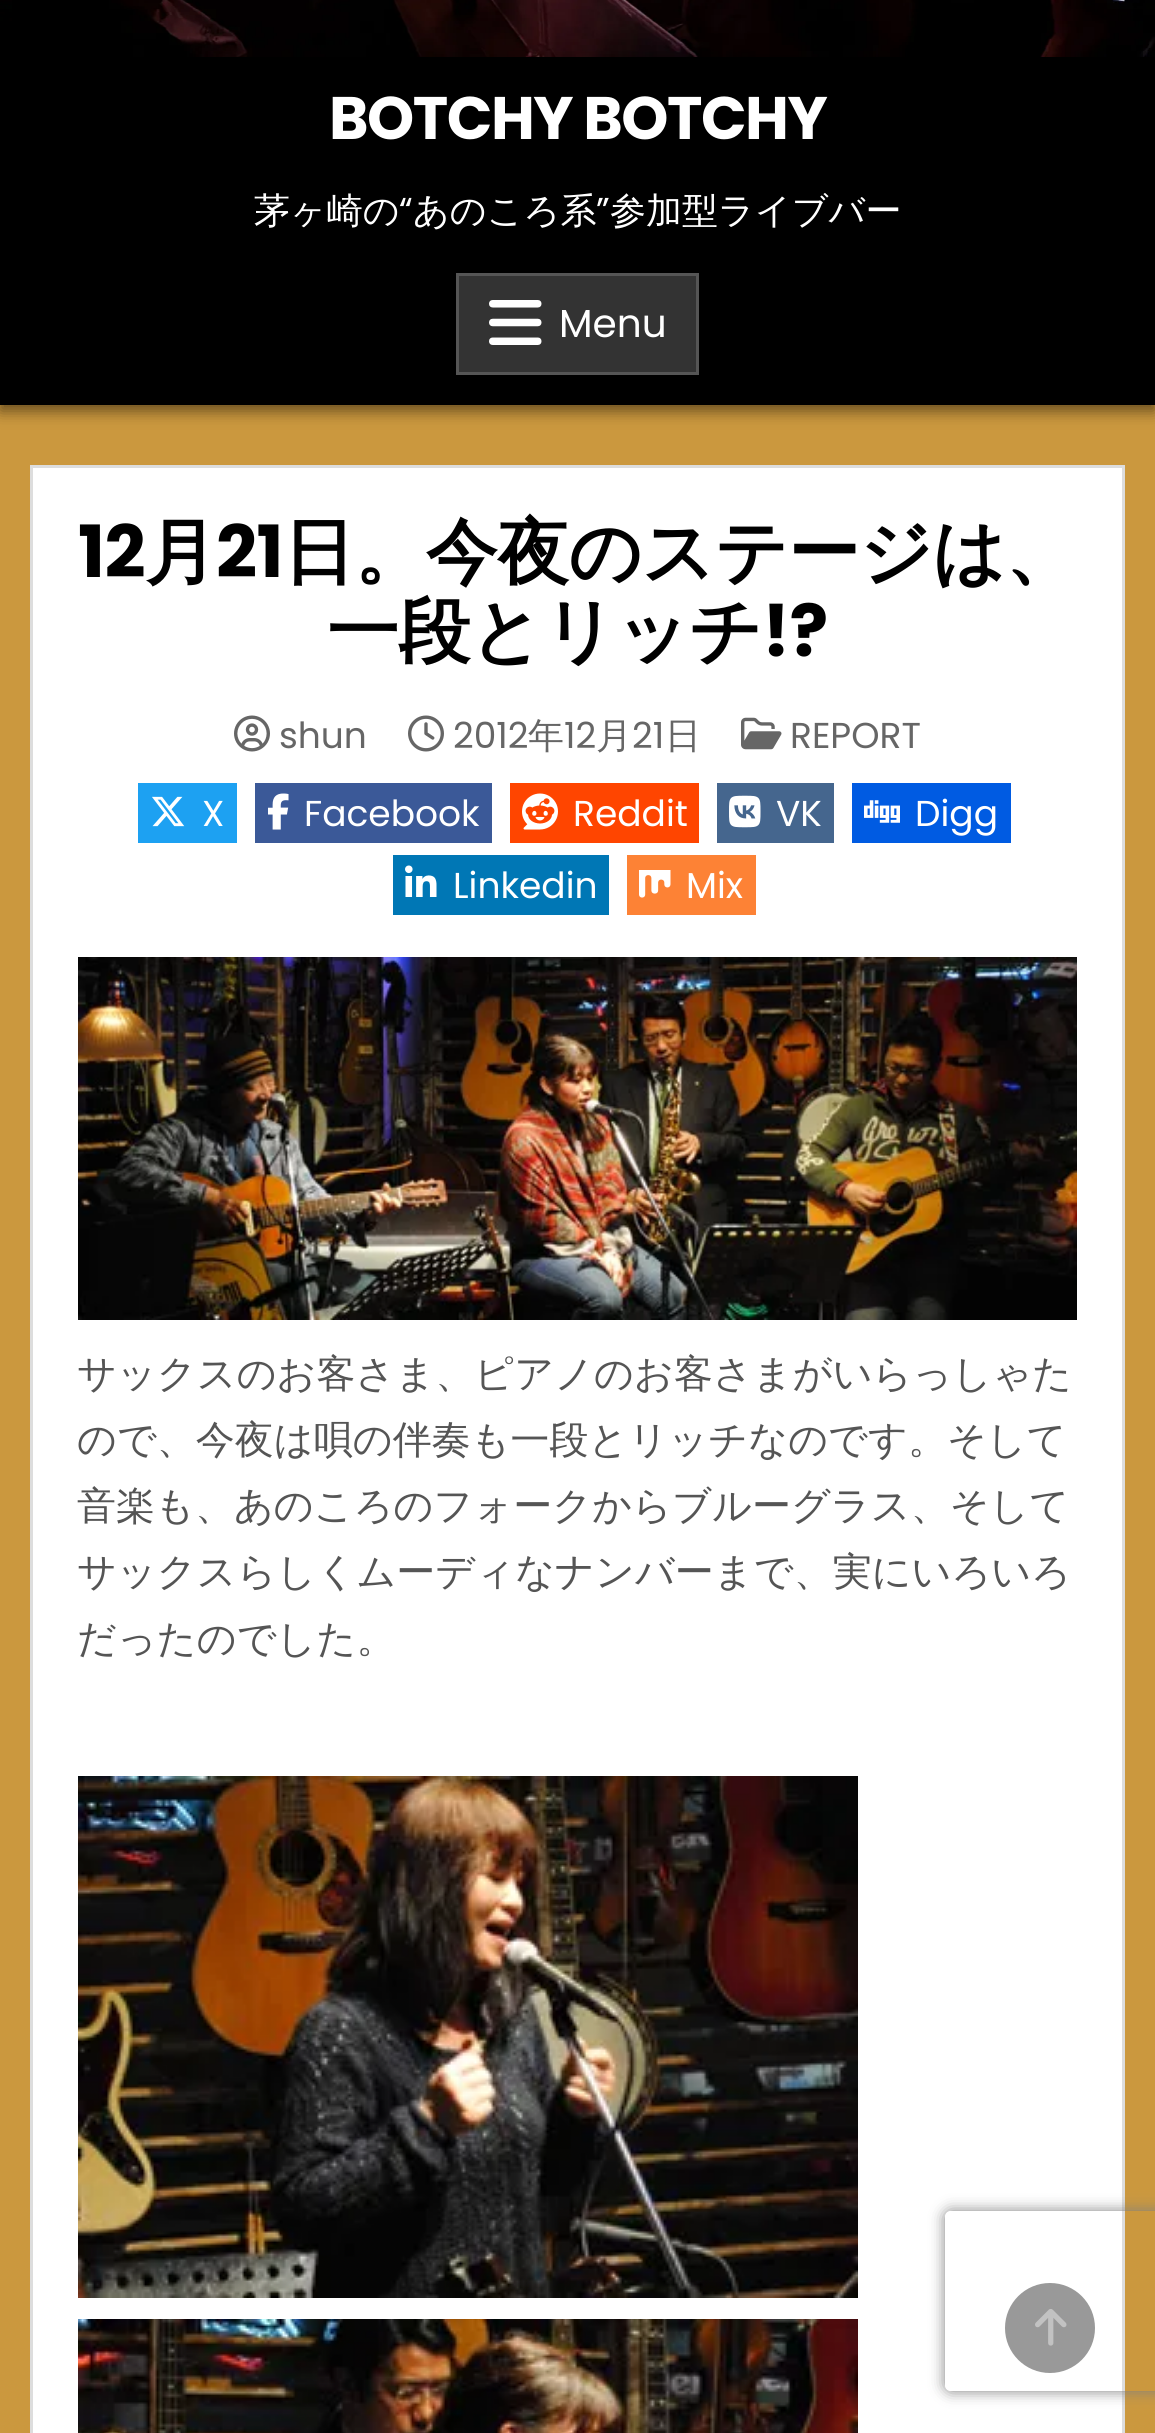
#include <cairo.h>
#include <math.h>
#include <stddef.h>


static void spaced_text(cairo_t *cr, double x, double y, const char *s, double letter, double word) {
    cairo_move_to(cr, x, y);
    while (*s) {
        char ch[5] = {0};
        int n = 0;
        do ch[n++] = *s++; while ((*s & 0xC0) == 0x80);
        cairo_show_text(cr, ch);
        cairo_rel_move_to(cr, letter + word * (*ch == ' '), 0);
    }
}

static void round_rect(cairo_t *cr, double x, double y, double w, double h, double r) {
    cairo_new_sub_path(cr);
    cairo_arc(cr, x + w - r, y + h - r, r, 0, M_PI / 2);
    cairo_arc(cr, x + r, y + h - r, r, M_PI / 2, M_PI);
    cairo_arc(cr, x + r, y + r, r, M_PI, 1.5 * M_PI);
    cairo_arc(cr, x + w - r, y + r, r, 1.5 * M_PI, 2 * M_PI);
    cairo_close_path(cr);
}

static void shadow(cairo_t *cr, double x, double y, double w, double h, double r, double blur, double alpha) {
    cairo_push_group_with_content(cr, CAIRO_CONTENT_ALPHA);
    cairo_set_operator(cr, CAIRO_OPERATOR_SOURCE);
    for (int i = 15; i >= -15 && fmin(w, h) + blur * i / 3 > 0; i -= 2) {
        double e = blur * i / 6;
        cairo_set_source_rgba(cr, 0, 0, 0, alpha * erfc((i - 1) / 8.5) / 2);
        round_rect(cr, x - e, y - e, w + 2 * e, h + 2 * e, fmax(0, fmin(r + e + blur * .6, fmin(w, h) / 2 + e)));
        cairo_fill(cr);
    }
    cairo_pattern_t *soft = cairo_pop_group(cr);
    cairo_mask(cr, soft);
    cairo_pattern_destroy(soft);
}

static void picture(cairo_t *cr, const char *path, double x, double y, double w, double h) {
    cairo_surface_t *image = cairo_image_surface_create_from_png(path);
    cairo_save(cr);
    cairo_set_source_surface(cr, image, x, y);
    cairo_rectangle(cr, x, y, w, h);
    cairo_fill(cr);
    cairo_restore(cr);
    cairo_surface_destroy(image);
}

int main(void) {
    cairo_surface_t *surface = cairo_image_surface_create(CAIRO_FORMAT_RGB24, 1155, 2433);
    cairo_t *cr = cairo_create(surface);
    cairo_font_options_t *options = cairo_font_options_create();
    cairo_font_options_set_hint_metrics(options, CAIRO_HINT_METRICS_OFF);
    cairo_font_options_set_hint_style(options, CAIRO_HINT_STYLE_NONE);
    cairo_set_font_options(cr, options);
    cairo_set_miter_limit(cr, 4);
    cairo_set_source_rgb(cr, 0.796, 0.596, 0.243);
    cairo_paint(cr);
    picture(cr, "img1.png", 0, 0, 1155, 57);
    cairo_set_source_rgb(cr, 0, 0, 0);
    shadow(cr, 0, 63, 1155, 348, 0, 7.5, 0.5);
    cairo_set_source_rgb(cr, 0, 0, 0);
    cairo_rectangle(cr, 0, 57, 1155, 348);
    cairo_fill(cr);
    cairo_select_font_face(cr, "Poppins", CAIRO_FONT_SLANT_NORMAL, CAIRO_FONT_WEIGHT_BOLD);
    cairo_set_font_size(cr, 60);
    cairo_set_source_rgb(cr, 1, 1, 1);
    spaced_text(cr, 329, 139, "BOTCHY BOTCHY", -1.5, 0);
    cairo_select_font_face(cr, "WenQuanYi Zen Hei Medium", CAIRO_FONT_SLANT_NORMAL, CAIRO_FONT_WEIGHT_NORMAL);
    cairo_set_font_size(cr, 36);
    cairo_move_to(cr, 254, 223);
    cairo_show_text(cr, "茅ヶ崎の");
    cairo_select_font_face(cr, "Poppins", CAIRO_FONT_SLANT_NORMAL, CAIRO_FONT_WEIGHT_NORMAL);
    cairo_move_to(cr, 399, 223);
    cairo_show_text(cr, "“");
    cairo_select_font_face(cr, "WenQuanYi Zen Hei Medium", CAIRO_FONT_SLANT_NORMAL, CAIRO_FONT_WEIGHT_NORMAL);
    cairo_move_to(cr, 413, 223);
    cairo_show_text(cr, "あのころ系");
    cairo_select_font_face(cr, "Poppins", CAIRO_FONT_SLANT_NORMAL, CAIRO_FONT_WEIGHT_NORMAL);
    cairo_move_to(cr, 596, 223);
    cairo_show_text(cr, "”");
    cairo_select_font_face(cr, "WenQuanYi Zen Hei Medium", CAIRO_FONT_SLANT_NORMAL, CAIRO_FONT_WEIGHT_NORMAL);
    cairo_move_to(cr, 610, 223);
    cairo_show_text(cr, "参加型ライブバー");
    cairo_set_source_rgb(cr, 0.2, 0.2, 0.2);
    cairo_rectangle(cr, 457.5, 274.5, 240, 99);
    cairo_fill_preserve(cr);
    cairo_set_source_rgb(cr, 0.333, 0.333, 0.333);
    cairo_set_line_width(cr, 3);
    cairo_stroke(cr);
    picture(cr, "img2.png", 489, 300, 53, 45);
    cairo_select_font_face(cr, "Poppins", CAIRO_FONT_SLANT_NORMAL, CAIRO_FONT_WEIGHT_NORMAL);
    cairo_set_font_size(cr, 39);
    cairo_set_source_rgb(cr, 1, 1, 1);
    cairo_move_to(cr, 559, 337);
    cairo_show_text(cr, "Menu");
    cairo_rectangle(cr, 31.5, 466.5, 1092, 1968);
    cairo_fill_preserve(cr);
    cairo_set_source_rgb(cr, 0.867, 0.867, 0.867);
    cairo_stroke(cr);
    cairo_select_font_face(cr, "Poppins", CAIRO_FONT_SLANT_NORMAL, CAIRO_FONT_WEIGHT_BOLD);
    cairo_set_font_size(cr, 72);
    cairo_set_source_rgb(cr, 0, 0, 0);
    spaced_text(cr, 78, 577, "12", -0.6, 0);
    cairo_select_font_face(cr, "WenQuanYi Zen Hei", CAIRO_FONT_SLANT_NORMAL, CAIRO_FONT_WEIGHT_BOLD);
    spaced_text(cr, 145, 577, "月", -0.6, 0);
    cairo_select_font_face(cr, "Poppins", CAIRO_FONT_SLANT_NORMAL, CAIRO_FONT_WEIGHT_BOLD);
    spaced_text(cr, 216, 577, "21", -0.6, 0);
    cairo_select_font_face(cr, "WenQuanYi Zen Hei", CAIRO_FONT_SLANT_NORMAL, CAIRO_FONT_WEIGHT_BOLD);
    spaced_text(cr, 283, 577, "日。今夜のステージは、", -0.6, 0);
    spaced_text(cr, 327, 656, "一段とリッチ", -0.6, 0);
    cairo_select_font_face(cr, "Poppins", CAIRO_FONT_SLANT_NORMAL, CAIRO_FONT_WEIGHT_BOLD);
    spaced_text(cr, 762, 656, "!?", -0.6, 0);
    picture(cr, "img3.png", 234, 715, 36, 37);
    cairo_select_font_face(cr, "Poppins", CAIRO_FONT_SLANT_NORMAL, CAIRO_FONT_WEIGHT_NORMAL);
    cairo_set_font_size(cr, 36);
    cairo_set_source_rgb(cr, 0.4, 0.4, 0.4);
    cairo_move_to(cr, 279, 748);
    cairo_show_text(cr, "shun");
    picture(cr, "img4.png", 408, 715, 36, 37);
    cairo_move_to(cr, 453, 748);
    cairo_show_text(cr, "2012");
    cairo_select_font_face(cr, "WenQuanYi Zen Hei Medium", CAIRO_FONT_SLANT_NORMAL, CAIRO_FONT_WEIGHT_NORMAL);
    cairo_move_to(cr, 528, 748);
    cairo_show_text(cr, "年");
    cairo_select_font_face(cr, "Poppins", CAIRO_FONT_SLANT_NORMAL, CAIRO_FONT_WEIGHT_NORMAL);
    cairo_move_to(cr, 564, 748);
    cairo_show_text(cr, "12");
    cairo_select_font_face(cr, "WenQuanYi Zen Hei Medium", CAIRO_FONT_SLANT_NORMAL, CAIRO_FONT_WEIGHT_NORMAL);
    cairo_move_to(cr, 596, 748);
    cairo_show_text(cr, "月");
    cairo_select_font_face(cr, "Poppins", CAIRO_FONT_SLANT_NORMAL, CAIRO_FONT_WEIGHT_NORMAL);
    cairo_move_to(cr, 632, 748);
    cairo_show_text(cr, "21");
    cairo_select_font_face(cr, "WenQuanYi Zen Hei Medium", CAIRO_FONT_SLANT_NORMAL, CAIRO_FONT_WEIGHT_NORMAL);
    cairo_move_to(cr, 665, 748);
    cairo_show_text(cr, "日");
    picture(cr, "img5.png", 741, 717, 41, 33);
    cairo_select_font_face(cr, "Poppins", CAIRO_FONT_SLANT_NORMAL, CAIRO_FONT_WEIGHT_NORMAL);
    cairo_move_to(cr, 790, 748);
    cairo_show_text(cr, "REPORT");
    cairo_set_source_rgb(cr, 0.114, 0.631, 0.949);
    cairo_rectangle(cr, 138, 783, 99, 60);
    cairo_fill(cr);
    picture(cr, "img6.png", 152, 796, 33, 31);
    cairo_set_source_rgb(cr, 1, 1, 1);
    cairo_move_to(cr, 202, 826);
    cairo_show_text(cr, "X");
    cairo_set_source_rgb(cr, 0.231, 0.349, 0.596);
    cairo_rectangle(cr, 255, 783, 237, 60);
    cairo_fill(cr);
    picture(cr, "img7.png", 268, 793, 21, 37);
    cairo_set_source_rgb(cr, 1, 1, 1);
    cairo_move_to(cr, 304, 826);
    cairo_show_text(cr, "Facebook");
    cairo_set_source_rgb(cr, 1, 0.271, 0);
    cairo_rectangle(cr, 510, 783, 189, 60);
    cairo_fill(cr);
    picture(cr, "img8.png", 522, 793, 36, 37);
    cairo_set_source_rgb(cr, 1, 1, 1);
    cairo_move_to(cr, 573, 826);
    cairo_show_text(cr, "Reddit");
    cairo_set_source_rgb(cr, 0.271, 0.4, 0.557);
    cairo_rectangle(cr, 717, 783, 117, 60);
    cairo_fill(cr);
    picture(cr, "img9.png", 729, 795, 32, 33);
    cairo_set_source_rgb(cr, 1, 1, 1);
    cairo_move_to(cr, 776, 826);
    cairo_show_text(cr, "VK");
    cairo_set_source_rgb(cr, 0, 0.357, 0.886);
    cairo_rectangle(cr, 852, 783, 159, 60);
    cairo_fill(cr);
    picture(cr, "img10.png", 864, 800, 36, 23);
    cairo_set_source_rgb(cr, 1, 1, 1);
    cairo_move_to(cr, 915, 826);
    cairo_show_text(cr, "Digg");
    cairo_set_source_rgb(cr, 0, 0.467, 0.71);
    cairo_rectangle(cr, 393, 855, 216, 60);
    cairo_fill(cr);
    picture(cr, "img11.png", 405, 865, 32, 32);
    cairo_set_source_rgb(cr, 1, 1, 1);
    cairo_move_to(cr, 453, 898);
    cairo_show_text(cr, "Linkedin");
    cairo_set_source_rgb(cr, 0.992, 0.51, 0.208);
    cairo_rectangle(cr, 627, 855, 129, 60);
    cairo_fill(cr);
    picture(cr, "img12.png", 639, 870, 32, 28);
    cairo_set_source_rgb(cr, 1, 1, 1);
    cairo_move_to(cr, 686, 898);
    cairo_show_text(cr, "Mix");
    picture(cr, "img13.png", 78, 957, 999, 363);
    cairo_select_font_face(cr, "WenQuanYi Zen Hei Medium", CAIRO_FONT_SLANT_NORMAL, CAIRO_FONT_WEIGHT_NORMAL);
    cairo_set_font_size(cr, 39);
    cairo_set_source_rgb(cr, 0.333, 0.333, 0.333);
    cairo_move_to(cr, 77, 1387);
    cairo_show_text(cr, "サックスのお客さま、ピアノのお客さまがいらっしゃた");
    cairo_move_to(cr, 77, 1453);
    cairo_show_text(cr, "ので、今夜は唄の伴奏も一段とリッチなのです。そして");
    cairo_move_to(cr, 77, 1519);
    cairo_show_text(cr, "音楽も、あのころのフォークからブルーグラス、そして");
    cairo_move_to(cr, 77, 1585);
    cairo_show_text(cr, "サックスらしくムーディなナンバーまで、実にいろいろ");
    cairo_move_to(cr, 77, 1652);
    cairo_show_text(cr, "だったのでした。");
    picture(cr, "img14.png", 78, 1776, 780, 522);
    picture(cr, "img15.png", 78, 2319, 780, 114);
    cairo_save(cr);
    cairo_set_fill_rule(cr, CAIRO_FILL_RULE_EVEN_ODD);
    cairo_new_path(cr);
    cairo_move_to(cr, 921, 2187);
    cairo_line_to(cr, 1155, 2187);
    cairo_line_to(cr, 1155, 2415);
    cairo_line_to(cr, 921, 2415);
    cairo_close_path(cr);
    cairo_move_to(cr, 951, 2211);
    cairo_line_to(cr, 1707, 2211);
    cairo_curve_to(cr, 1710.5, 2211, 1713, 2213.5, 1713, 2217);
    cairo_line_to(cr, 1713, 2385);
    cairo_curve_to(cr, 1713, 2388.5, 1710.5, 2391, 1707, 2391);
    cairo_line_to(cr, 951, 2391);
    cairo_curve_to(cr, 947.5, 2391, 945, 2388.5, 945, 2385);
    cairo_line_to(cr, 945, 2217);
    cairo_curve_to(cr, 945, 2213.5, 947.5, 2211, 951, 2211);
    cairo_close_path(cr);
    cairo_clip(cr);
    cairo_set_source_rgb(cr, 0.502, 0.502, 0.502);
    shadow(cr, 945, 2211, 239, 180, 6, 7.5, 1);
    cairo_restore(cr);
    cairo_set_source_rgb(cr, 0.6, 0.6, 0.6);
    cairo_arc(cr, 1050, 2328, 43.5, 0, 2 * M_PI);
    cairo_fill_preserve(cr);
    cairo_stroke(cr);
    picture(cr, "img16.png", 1035, 2309, 32, 37);
    cairo_surface_write_to_png(surface, "page.png");
    cairo_font_options_destroy(options);
    cairo_destroy(cr);
    cairo_surface_destroy(surface);
    return 0;
}
